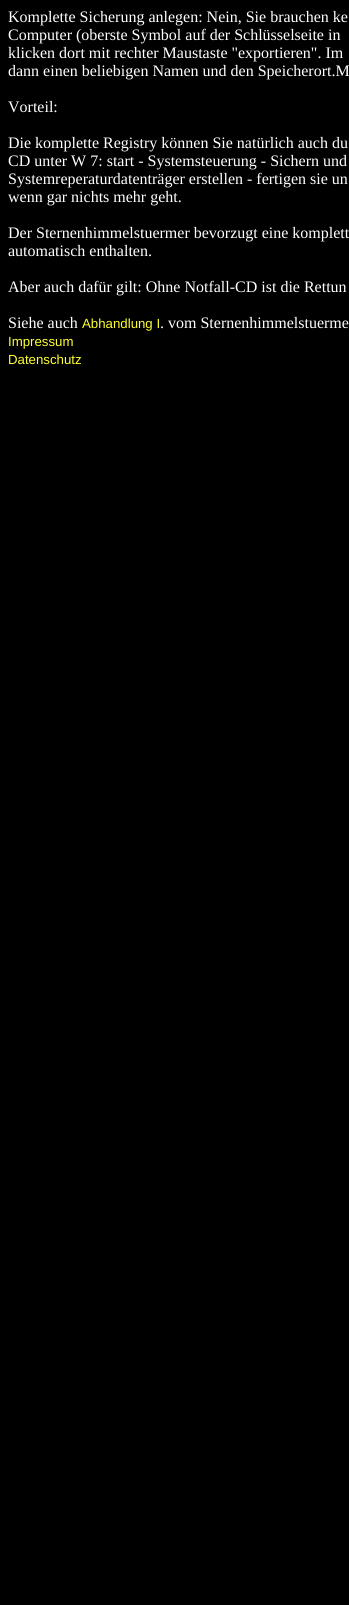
#include <cairo.h>
#include <math.h>
#include <stddef.h>


int main(void) {
    cairo_surface_t *surface = cairo_image_surface_create(CAIRO_FORMAT_RGB24, 349, 1605);
    cairo_t *cr = cairo_create(surface);
    cairo_font_options_t *options = cairo_font_options_create();
    cairo_font_options_set_hint_metrics(options, CAIRO_HINT_METRICS_OFF);
    cairo_font_options_set_hint_style(options, CAIRO_HINT_STYLE_NONE);
    cairo_set_font_options(cr, options);
    cairo_set_miter_limit(cr, 4);
    cairo_set_source_rgb(cr, 0, 0, 0);
    cairo_paint(cr);
    cairo_select_font_face(cr, "Liberation Serif", CAIRO_FONT_SLANT_NORMAL, CAIRO_FONT_WEIGHT_NORMAL);
    cairo_set_font_size(cr, 16);
    cairo_set_source_rgb(cr, 1, 1, 1);
    cairo_move_to(cr, 8, 22);
    cairo_show_text(cr, "Komplette Sicherung anlegen: Nein, Sie brauchen ke");
    cairo_move_to(cr, 8, 40);
    cairo_show_text(cr, "Computer (oberste Symbol auf der Schlüsselseite in");
    cairo_move_to(cr, 8, 58);
    cairo_show_text(cr, "klicken dort mit rechter Maustaste \"exportieren\". Im");
    cairo_move_to(cr, 8, 76);
    cairo_show_text(cr, "dann einen beliebigen Namen und den Speicherort.M");
    cairo_move_to(cr, 8, 112);
    cairo_show_text(cr, "Vorteil:");
    cairo_move_to(cr, 8, 148);
    cairo_show_text(cr, "Die komplette Registry können Sie natürlich auch du");
    cairo_move_to(cr, 8, 166);
    cairo_show_text(cr, "CD unter W 7: start - Systemsteuerung - Sichern und");
    cairo_move_to(cr, 8, 184);
    cairo_show_text(cr, "Systemreperaturdatenträger erstellen - fertigen sie un");
    cairo_move_to(cr, 8, 202);
    cairo_show_text(cr, "wenn gar nichts mehr geht.");
    cairo_move_to(cr, 8, 238);
    cairo_show_text(cr, "Der Sternenhimmelstuermer bevorzugt eine komplett");
    cairo_move_to(cr, 8, 256);
    cairo_show_text(cr, "automatisch enthalten.");
    cairo_move_to(cr, 8, 292);
    cairo_show_text(cr, "Aber auch dafür gilt: Ohne Notfall-CD ist die Rettun");
    cairo_move_to(cr, 8, 328);
    cairo_show_text(cr, "Siehe auch");
    cairo_select_font_face(cr, "Liberation Sans", CAIRO_FONT_SLANT_NORMAL, CAIRO_FONT_WEIGHT_NORMAL);
    cairo_set_font_size(cr, 13.25);
    cairo_set_source_rgb(cr, 1, 1, 0.2);
    cairo_move_to(cr, 82, 328);
    cairo_show_text(cr, "Abhandlung I");
    cairo_select_font_face(cr, "Liberation Serif", CAIRO_FONT_SLANT_NORMAL, CAIRO_FONT_WEIGHT_NORMAL);
    cairo_set_font_size(cr, 16);
    cairo_set_source_rgb(cr, 1, 1, 1);
    cairo_move_to(cr, 160, 328);
    cairo_show_text(cr, ". vom Sternenhimmelstuerme");
    cairo_select_font_face(cr, "Liberation Sans", CAIRO_FONT_SLANT_NORMAL, CAIRO_FONT_WEIGHT_NORMAL);
    cairo_set_font_size(cr, 13.25);
    cairo_set_source_rgb(cr, 1, 1, 0.2);
    cairo_move_to(cr, 8, 346);
    cairo_show_text(cr, "Impressum");
    cairo_move_to(cr, 8, 364);
    cairo_show_text(cr, "Datenschutz");
    cairo_surface_write_to_png(surface, "page.png");
    cairo_font_options_destroy(options);
    cairo_destroy(cr);
    cairo_surface_destroy(surface);
    return 0;
}
